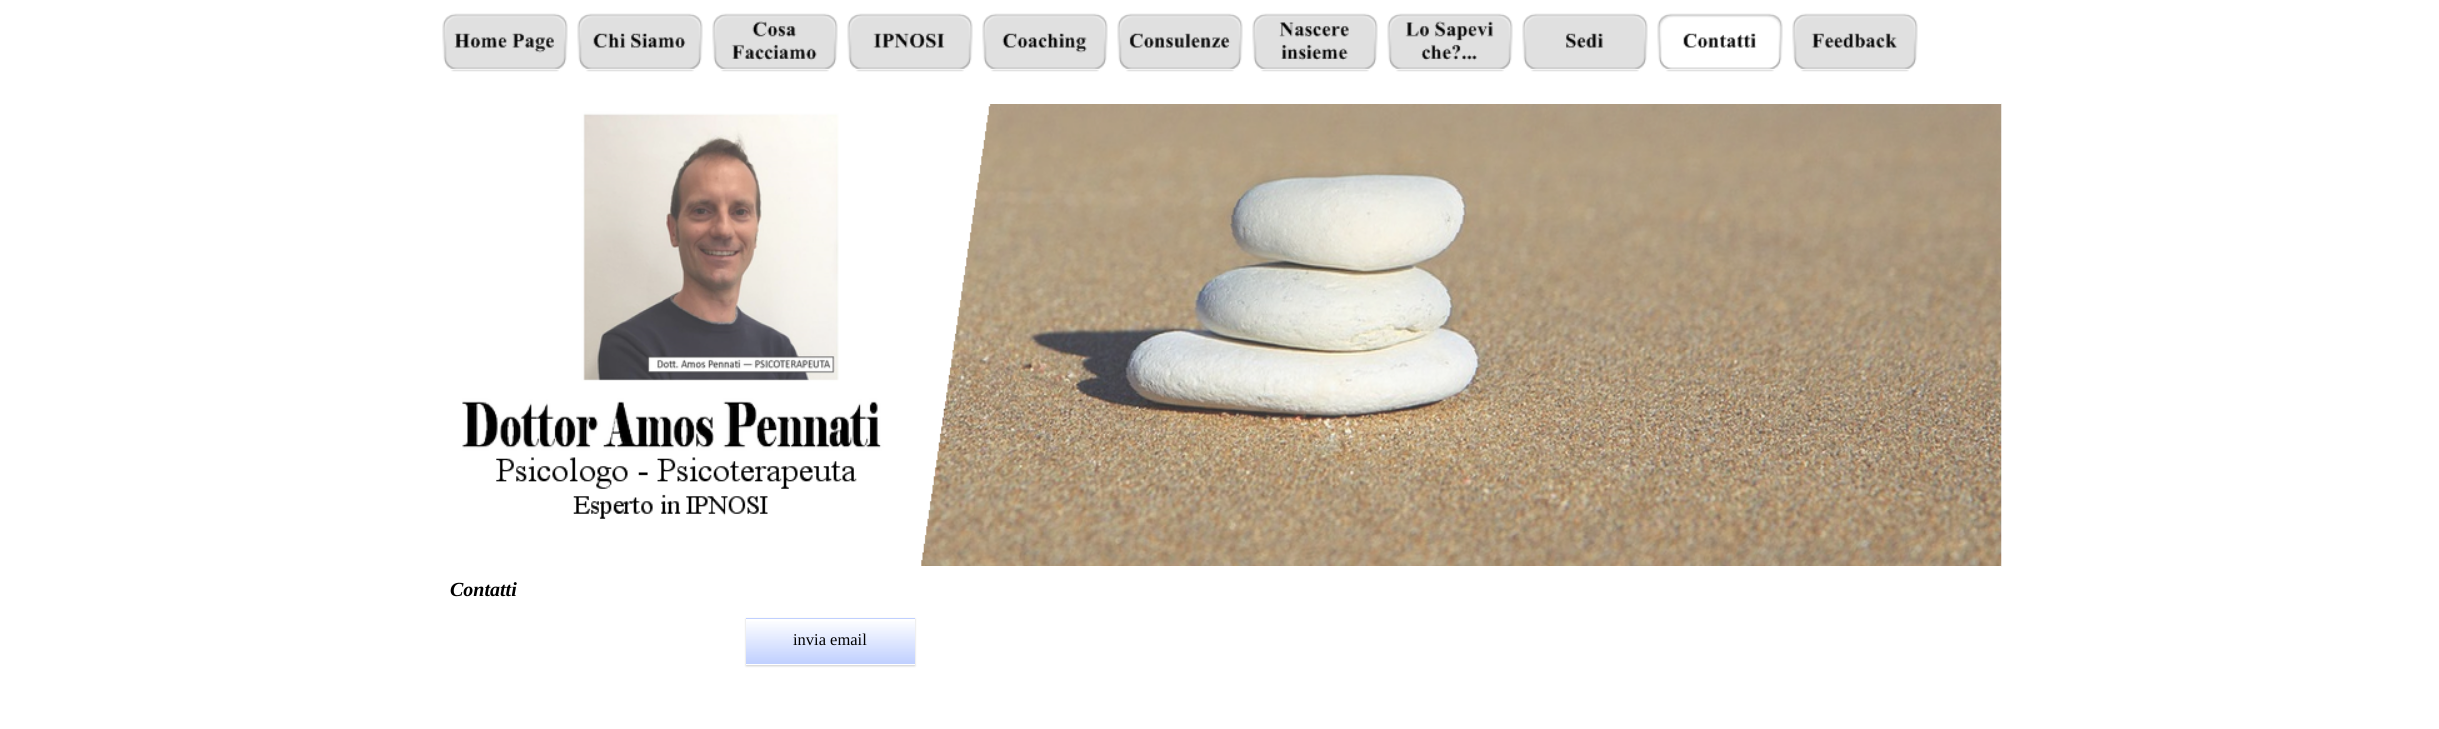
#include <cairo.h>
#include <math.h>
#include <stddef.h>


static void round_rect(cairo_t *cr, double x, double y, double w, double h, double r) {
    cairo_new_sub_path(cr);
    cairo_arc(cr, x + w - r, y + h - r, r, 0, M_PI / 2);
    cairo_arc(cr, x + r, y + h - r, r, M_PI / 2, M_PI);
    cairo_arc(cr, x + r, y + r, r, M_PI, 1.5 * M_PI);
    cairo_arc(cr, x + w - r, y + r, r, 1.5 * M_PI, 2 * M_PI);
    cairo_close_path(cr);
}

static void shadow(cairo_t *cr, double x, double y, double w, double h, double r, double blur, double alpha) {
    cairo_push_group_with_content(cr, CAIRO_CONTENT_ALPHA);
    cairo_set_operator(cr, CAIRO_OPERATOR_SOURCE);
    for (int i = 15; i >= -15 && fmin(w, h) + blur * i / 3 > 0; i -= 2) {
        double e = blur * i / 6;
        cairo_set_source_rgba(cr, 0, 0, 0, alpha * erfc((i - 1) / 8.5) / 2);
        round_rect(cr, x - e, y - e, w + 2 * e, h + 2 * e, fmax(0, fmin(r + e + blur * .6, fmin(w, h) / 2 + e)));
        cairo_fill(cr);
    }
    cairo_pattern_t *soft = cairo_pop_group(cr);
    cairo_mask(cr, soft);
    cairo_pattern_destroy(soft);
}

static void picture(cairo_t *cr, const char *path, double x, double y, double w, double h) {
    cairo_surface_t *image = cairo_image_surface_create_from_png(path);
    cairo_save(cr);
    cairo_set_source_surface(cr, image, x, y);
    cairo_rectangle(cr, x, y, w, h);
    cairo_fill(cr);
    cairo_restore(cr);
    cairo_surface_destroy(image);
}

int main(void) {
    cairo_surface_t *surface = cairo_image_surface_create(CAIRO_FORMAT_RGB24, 2439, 729);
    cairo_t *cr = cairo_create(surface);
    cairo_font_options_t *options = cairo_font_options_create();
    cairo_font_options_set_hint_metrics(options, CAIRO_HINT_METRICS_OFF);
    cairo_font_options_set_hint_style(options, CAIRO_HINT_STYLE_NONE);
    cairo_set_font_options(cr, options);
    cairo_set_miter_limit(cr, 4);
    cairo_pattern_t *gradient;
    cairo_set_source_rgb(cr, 1, 1, 1);
    cairo_paint(cr);
    picture(cr, "img12.png", 462, 103, 1540, 464);
    cairo_set_source_rgb(cr, 1, 1, 1);
    cairo_rectangle(cr, 990, 103, 1011, 1);
    cairo_fill(cr);
    picture(cr, "img1.png", 442, 13, 126, 59);
    picture(cr, "img2.png", 577, 13, 126, 59);
    picture(cr, "img3.png", 712, 13, 126, 59);
    picture(cr, "img4.png", 847, 13, 126, 59);
    picture(cr, "img5.png", 982, 13, 126, 59);
    picture(cr, "img6.png", 1117, 13, 126, 59);
    picture(cr, "img7.png", 1252, 13, 126, 59);
    picture(cr, "img8.png", 1387, 13, 126, 59);
    picture(cr, "img9.png", 1522, 13, 126, 59);
    picture(cr, "img10.png", 1657, 13, 126, 59);
    picture(cr, "img11.png", 1792, 13, 126, 59);
    cairo_rectangle(cr, 921, 566, 1080, 1);
    cairo_fill(cr);
    cairo_select_font_face(cr, "Liberation Serif", CAIRO_FONT_SLANT_ITALIC, CAIRO_FONT_WEIGHT_BOLD);
    cairo_set_font_size(cr, 20);
    cairo_set_source_rgb(cr, 0, 0, 0);
    cairo_move_to(cr, 450, 596);
    cairo_show_text(cr, "Contatti");
    cairo_save(cr);
    cairo_set_fill_rule(cr, CAIRO_FILL_RULE_EVEN_ODD);
    cairo_new_path(cr);
    cairo_move_to(cr, 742, 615);
    cairo_line_to(cr, 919, 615);
    cairo_line_to(cr, 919, 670);
    cairo_line_to(cr, 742, 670);
    cairo_close_path(cr);
    cairo_move_to(cr, 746, 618);
    cairo_line_to(cr, 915, 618);
    cairo_line_to(cr, 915, 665);
    cairo_line_to(cr, 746, 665);
    cairo_close_path(cr);
    cairo_clip(cr);
    cairo_set_source_rgb(cr, 0, 0, 0);
    shadow(cr, 746, 619, 169, 47, 0, 1, 0.2);
    cairo_restore(cr);
    gradient = cairo_pattern_create_linear(831, 574, 831, 619);
    cairo_pattern_add_color_stop_rgba(gradient, 0, 0.749, 0.812, 1, 0);
    cairo_pattern_add_color_stop_rgba(gradient, 1, 0.749, 0.812, 1, 1);
    cairo_set_source(cr, gradient);
    cairo_pattern_destroy(gradient);
    cairo_rectangle(cr, 746, 618, 169, 1);
    cairo_fill(cr);
    gradient = cairo_pattern_create_linear(831, 619, 831, 664);
    cairo_pattern_add_color_stop_rgba(gradient, 0, 0.749, 0.812, 1, 0);
    cairo_pattern_add_color_stop_rgba(gradient, 1, 0.749, 0.812, 1, 1);
    cairo_set_source(cr, gradient);
    cairo_pattern_destroy(gradient);
    cairo_rectangle(cr, 746, 621, 169, 43);
    cairo_fill(cr);
    cairo_select_font_face(cr, "Liberation Serif", CAIRO_FONT_SLANT_NORMAL, CAIRO_FONT_WEIGHT_NORMAL);
    cairo_set_font_size(cr, 16.5);
    cairo_set_source_rgb(cr, 0, 0, 0);
    cairo_move_to(cr, 793, 645);
    cairo_show_text(cr, "invia email");
    cairo_surface_write_to_png(surface, "page.png");
    cairo_font_options_destroy(options);
    cairo_destroy(cr);
    cairo_surface_destroy(surface);
    return 0;
}
